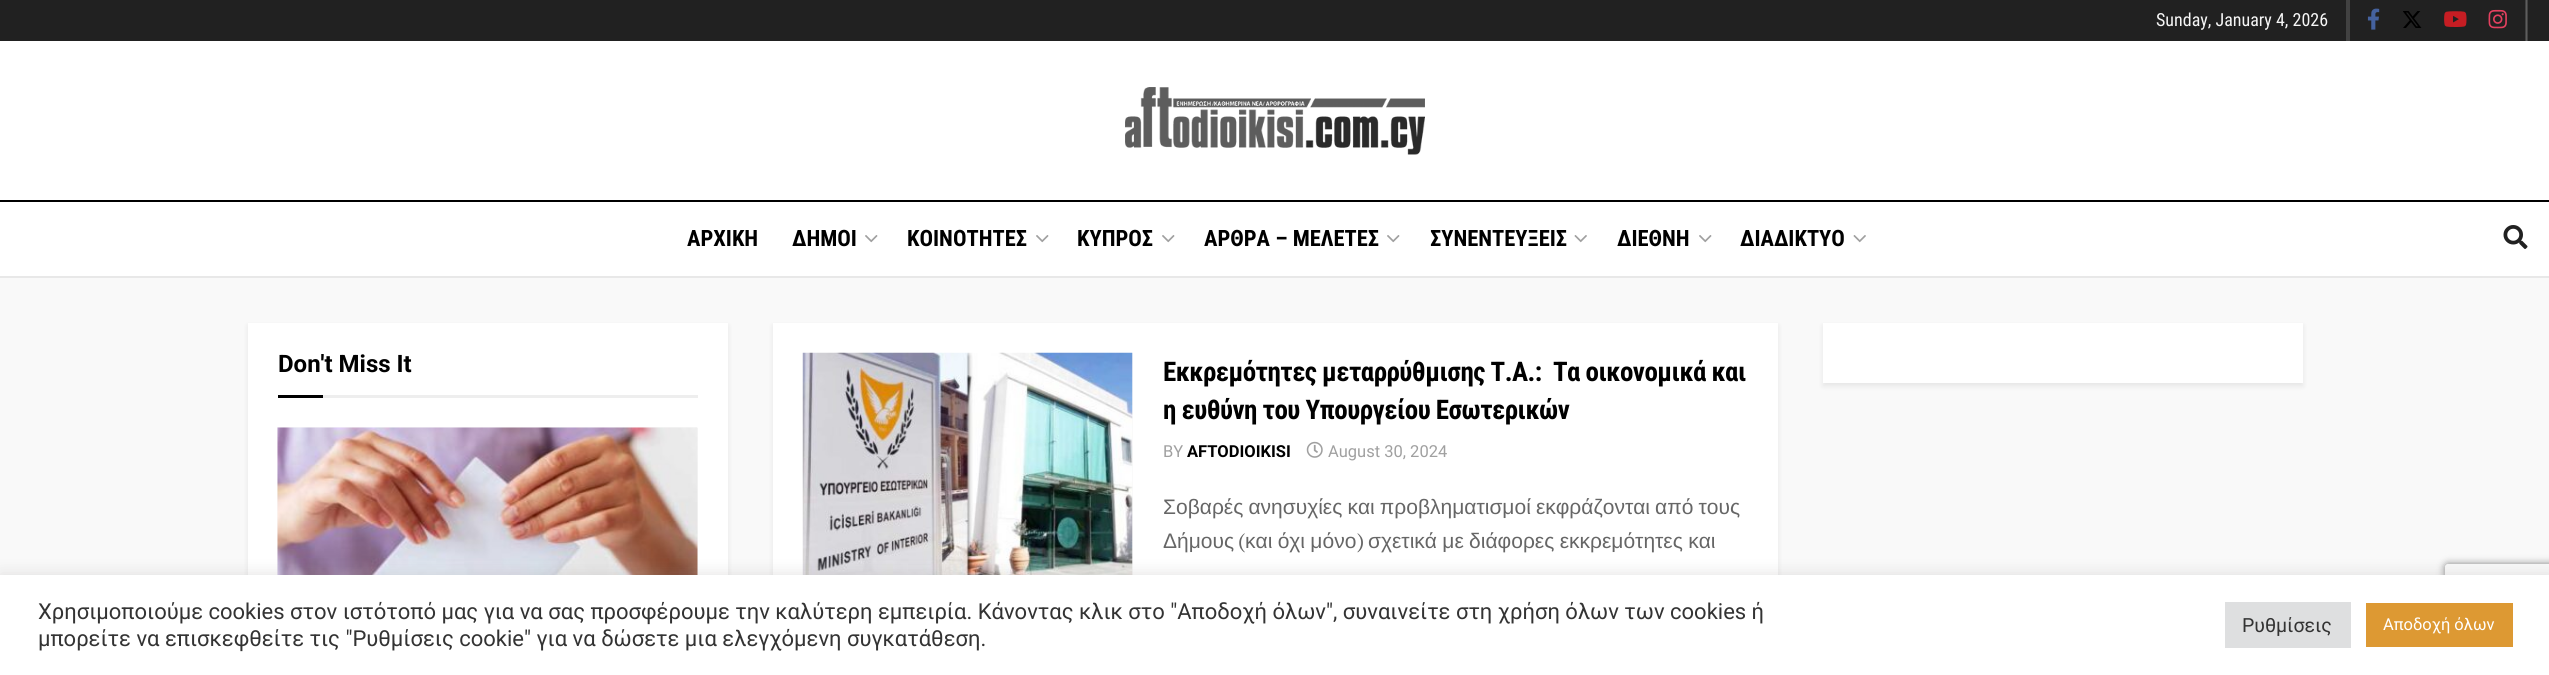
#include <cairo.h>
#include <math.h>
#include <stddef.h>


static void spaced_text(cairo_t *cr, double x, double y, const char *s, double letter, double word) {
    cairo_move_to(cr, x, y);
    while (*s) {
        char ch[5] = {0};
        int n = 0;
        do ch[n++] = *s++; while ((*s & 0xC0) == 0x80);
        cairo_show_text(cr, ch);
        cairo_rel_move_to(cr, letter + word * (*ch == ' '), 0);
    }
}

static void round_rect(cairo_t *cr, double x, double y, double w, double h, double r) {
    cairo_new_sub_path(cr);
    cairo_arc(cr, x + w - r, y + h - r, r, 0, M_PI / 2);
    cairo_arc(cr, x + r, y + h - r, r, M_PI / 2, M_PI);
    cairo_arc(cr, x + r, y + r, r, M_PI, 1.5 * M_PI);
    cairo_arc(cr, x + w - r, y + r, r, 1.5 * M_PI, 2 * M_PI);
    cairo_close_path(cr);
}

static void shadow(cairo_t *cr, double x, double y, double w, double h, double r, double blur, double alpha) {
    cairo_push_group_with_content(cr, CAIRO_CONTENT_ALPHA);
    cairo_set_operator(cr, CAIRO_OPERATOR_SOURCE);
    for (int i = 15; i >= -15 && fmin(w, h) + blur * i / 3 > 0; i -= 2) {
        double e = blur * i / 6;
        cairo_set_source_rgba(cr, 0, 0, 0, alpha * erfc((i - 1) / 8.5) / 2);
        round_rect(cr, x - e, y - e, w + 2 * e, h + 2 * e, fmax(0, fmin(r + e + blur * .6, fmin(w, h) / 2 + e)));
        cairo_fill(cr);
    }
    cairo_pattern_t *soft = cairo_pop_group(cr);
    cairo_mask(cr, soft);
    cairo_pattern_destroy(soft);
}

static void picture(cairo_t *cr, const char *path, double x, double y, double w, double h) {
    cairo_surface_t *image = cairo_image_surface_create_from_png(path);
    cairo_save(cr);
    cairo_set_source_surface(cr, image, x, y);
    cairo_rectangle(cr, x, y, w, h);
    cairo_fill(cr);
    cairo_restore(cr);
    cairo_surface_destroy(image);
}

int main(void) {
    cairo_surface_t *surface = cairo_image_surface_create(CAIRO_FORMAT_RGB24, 2549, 675);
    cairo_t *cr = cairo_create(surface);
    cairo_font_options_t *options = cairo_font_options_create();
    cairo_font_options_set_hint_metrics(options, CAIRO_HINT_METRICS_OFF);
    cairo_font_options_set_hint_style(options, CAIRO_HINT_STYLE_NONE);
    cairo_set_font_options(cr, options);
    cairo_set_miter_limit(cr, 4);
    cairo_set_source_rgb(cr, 1, 1, 1);
    cairo_paint(cr);
    cairo_set_source_rgb(cr, 0.129, 0.129, 0.129);
    cairo_rectangle(cr, 0, 0, 2549, 41);
    cairo_fill(cr);
    cairo_set_source_rgb(cr, 0.259, 0.259, 0.259);
    cairo_rectangle(cr, 2527, 0, 1, 41);
    cairo_fill(cr);
    cairo_rectangle(cr, 2525, 0, 1, 41);
    cairo_fill(cr);
    cairo_set_source_rgb(cr, 0.369, 0.369, 0.369);
    cairo_rectangle(cr, 2526, 0, 1, 41);
    cairo_fill(cr);
    cairo_set_source_rgb(cr, 0.259, 0.259, 0.259);
    cairo_rectangle(cr, 2346, 0, 4, 41);
    cairo_fill(cr);
    cairo_select_font_face(cr, "Roboto Condensed", CAIRO_FONT_SLANT_NORMAL, CAIRO_FONT_WEIGHT_NORMAL);
    cairo_set_font_size(cr, 18);
    cairo_set_source_rgb(cr, 0.961, 0.961, 0.961);
    cairo_move_to(cr, 2156, 26);
    cairo_show_text(cr, "Sunday, January 4, 2026");
    picture(cr, "img1.png", 2367, 8, 13, 22);
    picture(cr, "img2.png", 2403, 11, 19, 17);
    picture(cr, "img3.png", 2444, 11, 23, 16);
    picture(cr, "img4.png", 2488, 9, 19, 20);
    picture(cr, "img5.png", 1125, 87, 300, 68);
    cairo_set_source_rgb(cr, 0, 0, 0);
    cairo_rectangle(cr, 0, 200, 2549, 2);
    cairo_fill(cr);
    cairo_set_source_rgb(cr, 0.91, 0.91, 0.91);
    cairo_rectangle(cr, 0, 276, 2549, 2);
    cairo_fill(cr);
    cairo_select_font_face(cr, "Roboto Condensed", CAIRO_FONT_SLANT_NORMAL, CAIRO_FONT_WEIGHT_BOLD);
    cairo_set_font_size(cr, 22.5);
    cairo_set_source_rgb(cr, 0, 0, 0);
    cairo_move_to(cr, 687, 246);
    cairo_show_text(cr, "ΑΡΧΙΚΗ");
    cairo_move_to(cr, 792, 246);
    cairo_show_text(cr, "ΔΗΜΟΙ");
    picture(cr, "img6.png", 865, 235, 13, 8);
    cairo_move_to(cr, 907, 246);
    cairo_show_text(cr, "ΚΟΙΝΟΤΗΤΕΣ");
    picture(cr, "img6.png", 1036, 235, 13, 8);
    cairo_move_to(cr, 1077, 246);
    cairo_show_text(cr, "ΚΥΠΡΟΣ");
    picture(cr, "img6.png", 1162, 235, 13, 8);
    cairo_move_to(cr, 1204, 246);
    cairo_show_text(cr, "ΑΡΘΡΑ – ΜΕΛΕΤΕΣ");
    picture(cr, "img6.png", 1387, 235, 13, 8);
    cairo_move_to(cr, 1430, 246);
    cairo_show_text(cr, "ΣΥΝΕΝΤΕΥΞΕΙΣ");
    picture(cr, "img7.png", 1574, 235, 13, 8);
    cairo_move_to(cr, 1617, 246);
    cairo_show_text(cr, "ΔΙΕΘΝΗ");
    picture(cr, "img6.png", 1699, 235, 13, 8);
    cairo_move_to(cr, 1740, 246);
    cairo_show_text(cr, "ΔΙΑΔΙΚΤΥΟ");
    picture(cr, "img7.png", 1853, 235, 13, 8);
    picture(cr, "img8.png", 2503, 225, 25, 24);
    cairo_set_source_rgb(cr, 0.976, 0.976, 0.976);
    cairo_rectangle(cr, 0, 278, 2549, 297);
    cairo_fill(cr);
    cairo_set_source_rgb(cr, 0, 0, 0);
    shadow(cr, 248, 326, 480, 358, 0, 3, 0.08);
    cairo_set_source_rgb(cr, 1, 1, 1);
    cairo_rectangle(cr, 248, 323, 480, 252);
    cairo_fill(cr);
    cairo_set_source_rgb(cr, 0.933, 0.933, 0.933);
    cairo_rectangle(cr, 323, 395, 375, 3);
    cairo_fill(cr);
    cairo_select_font_face(cr, "Roboto", CAIRO_FONT_SLANT_NORMAL, CAIRO_FONT_WEIGHT_BOLD);
    cairo_set_font_size(cr, 24);
    cairo_set_source_rgb(cr, 0, 0, 0);
    cairo_move_to(cr, 278, 372);
    cairo_show_text(cr, "Don't Miss It");
    cairo_rectangle(cr, 278, 395, 45, 3);
    cairo_fill(cr);
    cairo_set_source_rgb(cr, 0.969, 0.969, 0.969);
    cairo_rectangle(cr, 697, 428, 1, 147);
    cairo_fill(cr);
    cairo_rectangle(cr, 277, 427, 420, 148);
    cairo_fill(cr);
    picture(cr, "img9.png", 277, 427, 421, 148);
    cairo_set_source_rgb(cr, 0, 0, 0);
    shadow(cr, 773, 326, 1005, 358, 0, 3, 0.08);
    cairo_set_source_rgb(cr, 1, 1, 1);
    cairo_rectangle(cr, 773, 323, 1005, 252);
    cairo_fill(cr);
    cairo_set_source_rgb(cr, 0.969, 0.969, 0.969);
    cairo_rectangle(cr, 1132, 353, 1, 222);
    cairo_fill(cr);
    picture(cr, "img10.png", 802, 352, 331, 223);
    cairo_select_font_face(cr, "Roboto Condensed", CAIRO_FONT_SLANT_NORMAL, CAIRO_FONT_WEIGHT_BOLD);
    cairo_set_font_size(cr, 27);
    cairo_set_source_rgb(cr, 0, 0, 0);
    spaced_text(cr, 1163, 381, "Εκκρεμότητες μεταρρύθμισης Τ.Α.:  Τα οικονομικά και", -0.55, 0);
    spaced_text(cr, 1163, 419, "η ευθύνη του Υπουργείου Εσωτερικών", -0.55, 0);
    cairo_select_font_face(cr, "Roboto", CAIRO_FONT_SLANT_NORMAL, CAIRO_FONT_WEIGHT_NORMAL);
    cairo_set_font_size(cr, 16.5);
    cairo_set_source_rgb(cr, 0.627, 0.627, 0.627);
    cairo_move_to(cr, 1163, 457);
    cairo_show_text(cr, "BY");
    cairo_select_font_face(cr, "Roboto", CAIRO_FONT_SLANT_NORMAL, CAIRO_FONT_WEIGHT_BOLD);
    cairo_set_source_rgb(cr, 0, 0, 0);
    cairo_move_to(cr, 1187, 457);
    cairo_show_text(cr, "AFTODIOIKISI");
    picture(cr, "img11.png", 1306, 441, 17, 17);
    cairo_select_font_face(cr, "Roboto", CAIRO_FONT_SLANT_NORMAL, CAIRO_FONT_WEIGHT_NORMAL);
    cairo_set_source_rgb(cr, 0.627, 0.627, 0.627);
    cairo_move_to(cr, 1328, 457);
    cairo_show_text(cr, "August 30, 2024");
    cairo_select_font_face(cr, "Liberation Sans", CAIRO_FONT_SLANT_NORMAL, CAIRO_FONT_WEIGHT_NORMAL);
    cairo_set_font_size(cr, 21);
    cairo_set_source_rgb(cr, 0.4, 0.4, 0.4);
    spaced_text(cr, 1163, 514, "Σοβαρές ανησυχίες και προβληματισμοί εκφράζονται από τους", 0, -0.75);
    cairo_move_to(cr, 1163, 548);
    cairo_show_text(cr, "Δήμους");
    cairo_select_font_face(cr, "PT Serif", CAIRO_FONT_SLANT_NORMAL, CAIRO_FONT_WEIGHT_NORMAL);
    cairo_move_to(cr, 1238, 548);
    cairo_show_text(cr, "(");
    cairo_select_font_face(cr, "Liberation Sans", CAIRO_FONT_SLANT_NORMAL, CAIRO_FONT_WEIGHT_NORMAL);
    spaced_text(cr, 1245, 548, "και όχι μόνο", 0, -0.5);
    cairo_select_font_face(cr, "PT Serif", CAIRO_FONT_SLANT_NORMAL, CAIRO_FONT_WEIGHT_NORMAL);
    cairo_move_to(cr, 1357, 548);
    cairo_show_text(cr, ")");
    cairo_select_font_face(cr, "Liberation Sans", CAIRO_FONT_SLANT_NORMAL, CAIRO_FONT_WEIGHT_NORMAL);
    spaced_text(cr, 1368, 548, "σχετικά με διάφορες εκκρεμότητες και", 0, -0.5);
    cairo_set_source_rgb(cr, 0, 0, 0);
    shadow(cr, 1823, 326, 480, 60, 0, 3, 0.08);
    cairo_set_source_rgb(cr, 1, 1, 1);
    cairo_rectangle(cr, 1823, 323, 480, 60);
    cairo_fill(cr);
    cairo_save(cr);
    cairo_set_fill_rule(cr, CAIRO_FILL_RULE_EVEN_ODD);
    cairo_new_path(cr);
    cairo_move_to(cr, 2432, 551);
    cairo_line_to(cr, 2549, 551);
    cairo_line_to(cr, 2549, 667);
    cairo_line_to(cr, 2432, 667);
    cairo_close_path(cr);
    cairo_move_to(cr, 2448, 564);
    cairo_line_to(cr, 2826, 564);
    cairo_curve_to(cr, 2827.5, 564, 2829, 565.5, 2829, 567);
    cairo_line_to(cr, 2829, 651);
    cairo_curve_to(cr, 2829, 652.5, 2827.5, 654, 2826, 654);
    cairo_line_to(cr, 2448, 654);
    cairo_curve_to(cr, 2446.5, 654, 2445, 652.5, 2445, 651);
    cairo_line_to(cr, 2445, 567);
    cairo_curve_to(cr, 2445, 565.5, 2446.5, 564, 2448, 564);
    cairo_close_path(cr);
    cairo_clip(cr);
    cairo_set_source_rgb(cr, 0.502, 0.502, 0.502);
    shadow(cr, 2445, 564, 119, 90, 3, 4, 1);
    cairo_restore(cr);
    cairo_set_source_rgb(cr, 0.675, 0.671, 0.671);
    shadow(cr, 0, 573, 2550, 101, 0, 7.5, 0.3);
    cairo_set_source_rgb(cr, 1, 1, 1);
    cairo_rectangle(cr, 0, 575, 2549, 100);
    cairo_fill(cr);
    cairo_select_font_face(cr, "Roboto", CAIRO_FONT_SLANT_NORMAL, CAIRO_FONT_WEIGHT_NORMAL);
    cairo_set_font_size(cr, 22);
    cairo_set_source_rgb(cr, 0.2, 0.2, 0.2);
    cairo_move_to(cr, 38, 619);
    cairo_show_text(cr, "Χρησιμοποιούμε cookies στον ιστότοπό μας για να σας προσφέρουμε την καλύτερη εμπειρία. Κάνοντας κλικ στο \"Αποδοχή όλων\", συναινείτε στη χρήση όλων των cookies ή");
    cairo_move_to(cr, 38, 646);
    cairo_show_text(cr, "μπορείτε να επισκεφθείτε τις \"Ρυθμίσεις cookie\" για να δώσετε μια ελεγχόμενη συγκατάθεση.");
    cairo_set_source_rgb(cr, 0.871, 0.875, 0.878);
    cairo_rectangle(cr, 2225, 602, 126, 46);
    cairo_fill(cr);
    cairo_set_font_size(cr, 19.5);
    cairo_set_source_rgb(cr, 0.2, 0.2, 0.2);
    cairo_move_to(cr, 2242, 632);
    cairo_show_text(cr, "Ρυθμίσεις");
    cairo_set_source_rgb(cr, 0.867, 0.6, 0.2);
    cairo_rectangle(cr, 2366, 603, 147, 44);
    cairo_fill(cr);
    cairo_set_font_size(cr, 16.5);
    cairo_set_source_rgb(cr, 1, 1, 1);
    cairo_move_to(cr, 2383, 630);
    cairo_show_text(cr, "Αποδοχή όλων");
    cairo_surface_write_to_png(surface, "page.png");
    cairo_font_options_destroy(options);
    cairo_destroy(cr);
    cairo_surface_destroy(surface);
    return 0;
}
